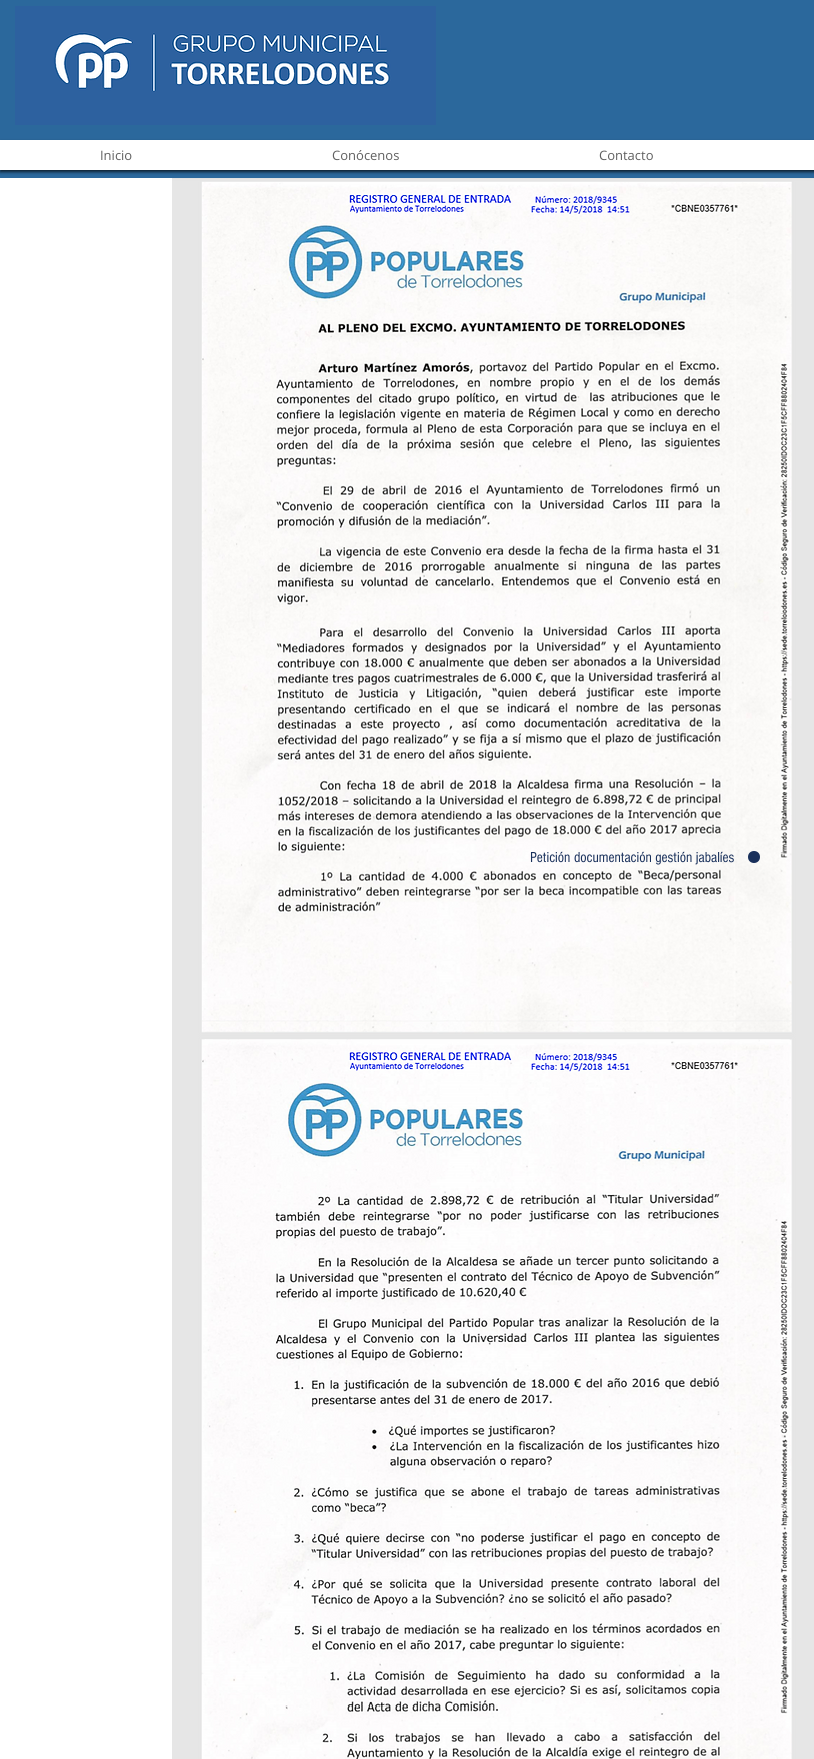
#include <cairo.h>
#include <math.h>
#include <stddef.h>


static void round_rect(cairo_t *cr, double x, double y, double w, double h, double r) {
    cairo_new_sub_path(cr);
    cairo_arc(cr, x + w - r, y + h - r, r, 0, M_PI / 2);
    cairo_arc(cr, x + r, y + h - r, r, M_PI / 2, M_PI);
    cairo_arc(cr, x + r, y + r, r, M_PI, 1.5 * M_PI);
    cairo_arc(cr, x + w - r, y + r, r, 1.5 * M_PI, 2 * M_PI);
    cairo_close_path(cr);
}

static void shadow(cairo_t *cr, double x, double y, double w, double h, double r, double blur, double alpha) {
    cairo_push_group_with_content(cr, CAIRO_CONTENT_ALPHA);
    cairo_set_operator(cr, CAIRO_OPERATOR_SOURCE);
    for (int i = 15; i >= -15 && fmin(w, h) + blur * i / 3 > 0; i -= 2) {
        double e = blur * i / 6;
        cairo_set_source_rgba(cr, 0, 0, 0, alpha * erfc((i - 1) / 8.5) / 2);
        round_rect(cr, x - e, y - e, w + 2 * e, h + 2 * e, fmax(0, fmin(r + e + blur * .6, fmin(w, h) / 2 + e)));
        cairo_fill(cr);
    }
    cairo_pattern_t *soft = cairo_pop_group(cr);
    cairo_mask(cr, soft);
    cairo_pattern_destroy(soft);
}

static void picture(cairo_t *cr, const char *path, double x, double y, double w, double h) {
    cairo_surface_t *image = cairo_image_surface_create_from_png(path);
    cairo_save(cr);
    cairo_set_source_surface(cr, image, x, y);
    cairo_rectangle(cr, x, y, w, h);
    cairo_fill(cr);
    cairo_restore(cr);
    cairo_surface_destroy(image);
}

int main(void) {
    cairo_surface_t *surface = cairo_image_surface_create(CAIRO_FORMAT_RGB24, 814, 1759);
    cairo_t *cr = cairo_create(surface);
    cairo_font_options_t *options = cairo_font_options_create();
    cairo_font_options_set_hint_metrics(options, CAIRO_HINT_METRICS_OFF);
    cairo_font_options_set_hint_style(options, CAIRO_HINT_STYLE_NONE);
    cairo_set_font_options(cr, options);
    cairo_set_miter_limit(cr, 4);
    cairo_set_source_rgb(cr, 0.169, 0.408, 0.612);
    cairo_paint(cr);
    picture(cr, "img1.png", 15, 6, 421, 119);
    cairo_set_source_rgb(cr, 0, 0, 0);
    shadow(cr, 0, 142, 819, 30, 0, 1.5, 0.7);
    cairo_set_source_rgb(cr, 1, 1, 1);
    cairo_rectangle(cr, 0, 140, 814, 30);
    cairo_fill(cr);
    cairo_select_font_face(cr, "Open Sans", CAIRO_FONT_SLANT_NORMAL, CAIRO_FONT_WEIGHT_NORMAL);
    cairo_set_font_size(cr, 13);
    cairo_set_source_rgb(cr, 0.376, 0.376, 0.376);
    cairo_move_to(cr, 100, 160);
    cairo_show_text(cr, "Inicio");
    cairo_move_to(cr, 332, 160);
    cairo_show_text(cr, "Conócenos");
    cairo_move_to(cr, 599, 160);
    cairo_show_text(cr, "Contacto");
    cairo_set_source_rgb(cr, 1, 1, 1);
    cairo_rectangle(cr, 0, 178, 172, 1581);
    cairo_fill(cr);
    picture(cr, "img2.png", 172, 178, 642, 1581);
    cairo_select_font_face(cr, "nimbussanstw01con", CAIRO_FONT_SLANT_NORMAL, CAIRO_FONT_WEIGHT_NORMAL);
    cairo_set_font_size(cr, 15);
    cairo_set_source_rgb(cr, 0.098, 0.188, 0.357);
    cairo_move_to(cr, 530, 862);
    cairo_show_text(cr, "Petición documentación gestión jabalíes");
    cairo_new_path(cr);
    cairo_arc(cr, 754, 857, 5, 0, 2 * M_PI);
    cairo_fill_preserve(cr);
    cairo_stroke(cr);
    cairo_surface_write_to_png(surface, "page.png");
    cairo_font_options_destroy(options);
    cairo_destroy(cr);
    cairo_surface_destroy(surface);
    return 0;
}
